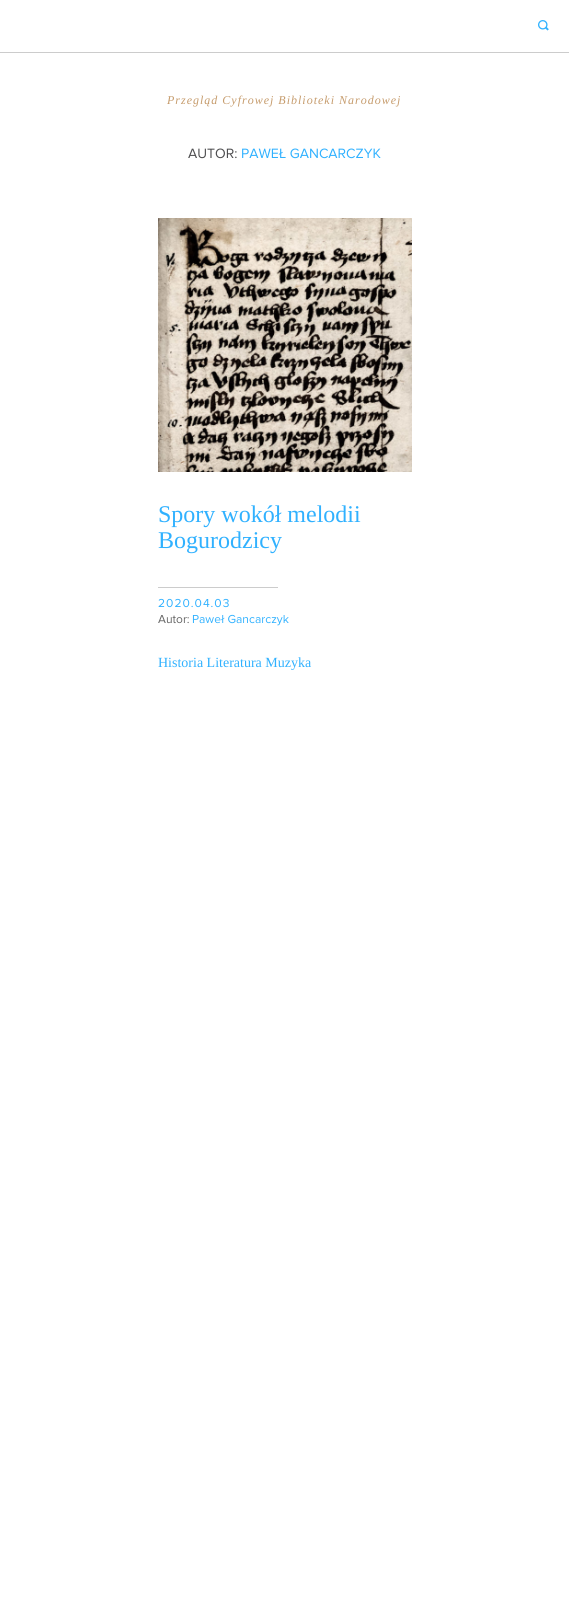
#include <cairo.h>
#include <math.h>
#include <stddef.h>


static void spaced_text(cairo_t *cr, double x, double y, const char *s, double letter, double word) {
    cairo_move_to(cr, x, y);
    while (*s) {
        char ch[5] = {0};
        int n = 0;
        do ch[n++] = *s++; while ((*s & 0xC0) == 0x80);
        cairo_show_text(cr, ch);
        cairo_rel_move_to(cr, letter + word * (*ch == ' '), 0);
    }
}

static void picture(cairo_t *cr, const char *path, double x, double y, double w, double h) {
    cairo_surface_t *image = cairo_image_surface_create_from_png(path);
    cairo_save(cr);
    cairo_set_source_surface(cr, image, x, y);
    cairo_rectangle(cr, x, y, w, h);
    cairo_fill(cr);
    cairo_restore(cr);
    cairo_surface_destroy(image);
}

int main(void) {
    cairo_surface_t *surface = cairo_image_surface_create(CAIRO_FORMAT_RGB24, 569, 1609);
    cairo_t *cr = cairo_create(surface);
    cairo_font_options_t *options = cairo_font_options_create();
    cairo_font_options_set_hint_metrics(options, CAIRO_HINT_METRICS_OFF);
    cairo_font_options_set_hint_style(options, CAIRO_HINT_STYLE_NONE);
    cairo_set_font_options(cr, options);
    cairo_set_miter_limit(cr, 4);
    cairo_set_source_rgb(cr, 1, 1, 1);
    cairo_paint(cr);
    picture(cr, "img1.png", 538, 20, 11, 11);
    cairo_set_source_rgb(cr, 0.8, 0.8, 0.8);
    cairo_rectangle(cr, 0, 52, 569, 1);
    cairo_fill(cr);
    cairo_select_font_face(cr, "Liberation Serif", CAIRO_FONT_SLANT_ITALIC, CAIRO_FONT_WEIGHT_NORMAL);
    cairo_set_font_size(cr, 12);
    cairo_set_source_rgb(cr, 0.776, 0.612, 0.427);
    spaced_text(cr, 167, 104, "Przegląd Cyfrowej Biblioteki Narodowej", 1, 0);
    cairo_select_font_face(cr, "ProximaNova", CAIRO_FONT_SLANT_NORMAL, CAIRO_FONT_WEIGHT_NORMAL);
    cairo_set_font_size(cr, 14);
    cairo_set_source_rgb(cr, 0.306, 0.306, 0.314);
    cairo_move_to(cr, 188, 158);
    cairo_show_text(cr, "AUTOR:");
    cairo_set_source_rgb(cr, 0.188, 0.694, 1);
    cairo_move_to(cr, 241, 158);
    cairo_show_text(cr, "PAWEŁ GANCARCZYK");
    picture(cr, "img2.png", 158, 218, 254, 254);
    cairo_select_font_face(cr, "Liberation Serif", CAIRO_FONT_SLANT_NORMAL, CAIRO_FONT_WEIGHT_NORMAL);
    cairo_set_font_size(cr, 24);
    cairo_move_to(cr, 158, 522);
    cairo_show_text(cr, "Spory wokół melodii");
    cairo_move_to(cr, 158, 548);
    cairo_show_text(cr, "Bogurodzicy");
    cairo_set_source_rgb(cr, 0.8, 0.8, 0.8);
    cairo_rectangle(cr, 158, 587, 120, 1);
    cairo_fill(cr);
    cairo_select_font_face(cr, "ProximaNova", CAIRO_FONT_SLANT_NORMAL, CAIRO_FONT_WEIGHT_NORMAL);
    cairo_set_font_size(cr, 12);
    cairo_set_source_rgb(cr, 0.188, 0.694, 1);
    spaced_text(cr, 158, 607, "2020.04.03", 1, 0);
    cairo_set_source_rgb(cr, 0.4, 0.4, 0.4);
    cairo_move_to(cr, 158, 623);
    cairo_show_text(cr, "Autor:");
    cairo_set_source_rgb(cr, 0.188, 0.694, 1);
    cairo_move_to(cr, 192, 623);
    cairo_show_text(cr, "Paweł Gancarczyk");
    cairo_select_font_face(cr, "Liberation Serif", CAIRO_FONT_SLANT_NORMAL, CAIRO_FONT_WEIGHT_NORMAL);
    cairo_set_font_size(cr, 14);
    cairo_move_to(cr, 158, 667);
    cairo_show_text(cr, "Historia Literatura Muzyka");
    cairo_surface_write_to_png(surface, "page.png");
    cairo_font_options_destroy(options);
    cairo_destroy(cr);
    cairo_surface_destroy(surface);
    return 0;
}
